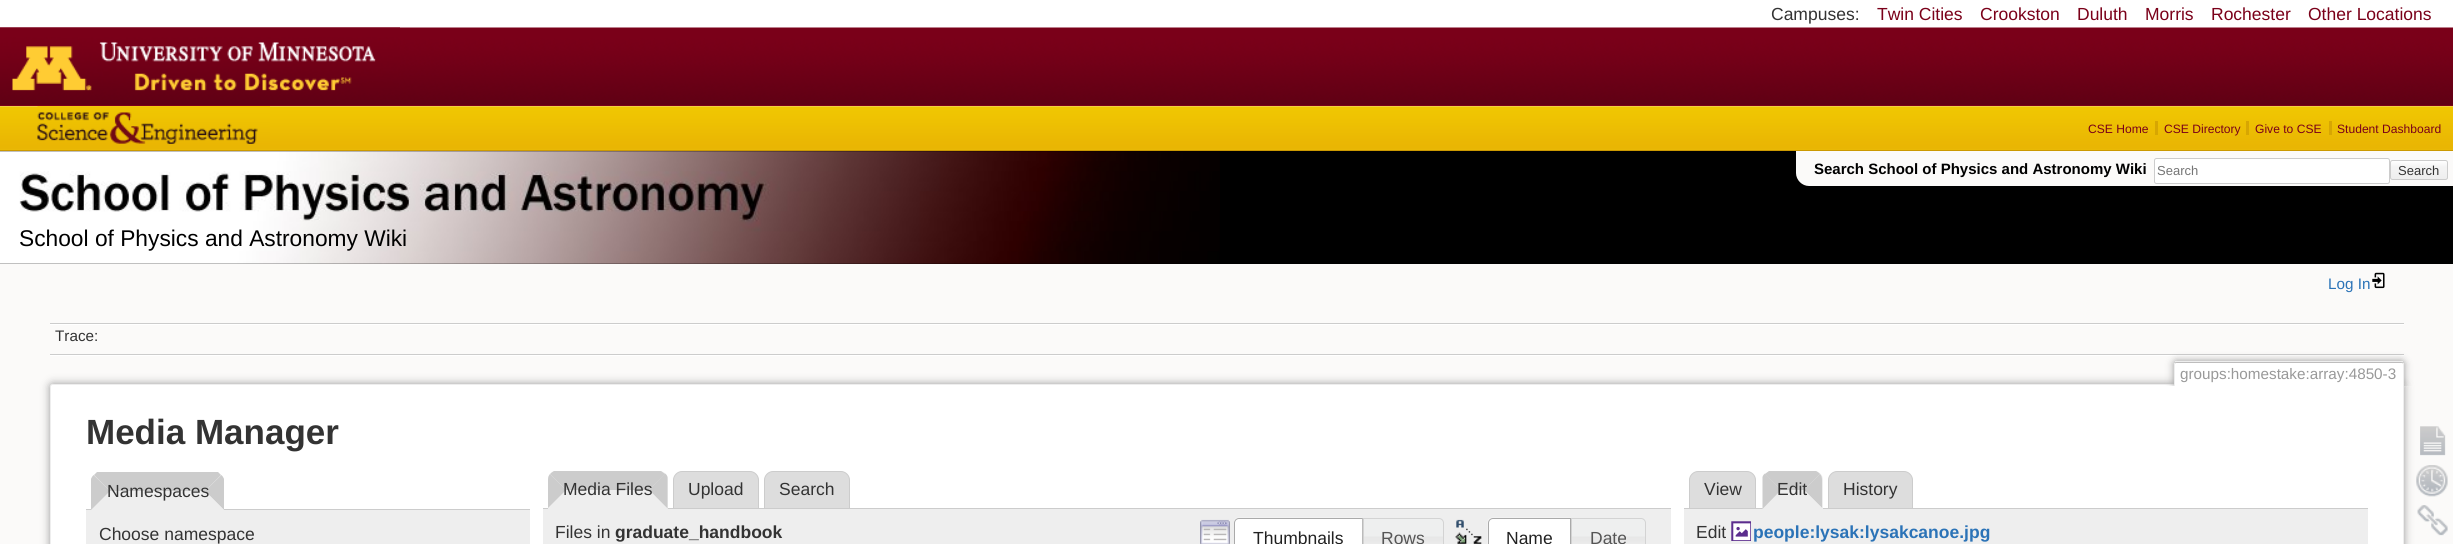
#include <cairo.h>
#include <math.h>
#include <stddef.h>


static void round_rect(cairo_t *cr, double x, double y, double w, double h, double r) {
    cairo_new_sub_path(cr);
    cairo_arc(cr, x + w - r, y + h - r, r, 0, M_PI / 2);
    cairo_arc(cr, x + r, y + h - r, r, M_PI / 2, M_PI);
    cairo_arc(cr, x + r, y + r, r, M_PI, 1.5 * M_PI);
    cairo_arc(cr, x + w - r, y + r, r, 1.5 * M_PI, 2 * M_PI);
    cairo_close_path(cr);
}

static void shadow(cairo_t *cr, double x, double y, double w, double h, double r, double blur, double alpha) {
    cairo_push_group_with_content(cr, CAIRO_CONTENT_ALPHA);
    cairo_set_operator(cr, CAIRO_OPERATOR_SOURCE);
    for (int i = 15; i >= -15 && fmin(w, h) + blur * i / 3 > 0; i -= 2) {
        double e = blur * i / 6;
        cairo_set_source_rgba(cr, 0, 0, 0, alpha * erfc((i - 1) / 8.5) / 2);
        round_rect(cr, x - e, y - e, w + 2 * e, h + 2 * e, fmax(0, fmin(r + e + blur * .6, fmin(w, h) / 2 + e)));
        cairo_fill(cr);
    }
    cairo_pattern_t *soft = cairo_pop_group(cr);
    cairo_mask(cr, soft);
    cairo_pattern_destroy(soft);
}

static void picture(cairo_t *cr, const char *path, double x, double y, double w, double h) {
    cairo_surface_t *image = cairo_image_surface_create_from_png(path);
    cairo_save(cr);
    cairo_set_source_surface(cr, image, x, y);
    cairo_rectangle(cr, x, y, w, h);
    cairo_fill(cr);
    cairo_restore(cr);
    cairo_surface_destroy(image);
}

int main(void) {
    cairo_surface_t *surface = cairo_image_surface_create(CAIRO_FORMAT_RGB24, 2453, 544);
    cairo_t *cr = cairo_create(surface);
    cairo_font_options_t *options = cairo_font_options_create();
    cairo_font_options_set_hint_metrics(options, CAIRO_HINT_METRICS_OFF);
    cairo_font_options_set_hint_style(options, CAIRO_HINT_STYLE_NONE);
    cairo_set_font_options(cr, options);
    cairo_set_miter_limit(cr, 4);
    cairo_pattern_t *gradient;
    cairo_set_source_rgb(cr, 0.984, 0.98, 0.976);
    cairo_paint(cr);
    cairo_set_source_rgb(cr, 1, 1, 1);
    cairo_rectangle(cr, 0, 0, 2453, 28);
    cairo_fill(cr);
    cairo_select_font_face(cr, "Liberation Sans", CAIRO_FONT_SLANT_NORMAL, CAIRO_FONT_WEIGHT_NORMAL);
    cairo_set_font_size(cr, 17.5);
    cairo_set_source_rgb(cr, 0.2, 0.2, 0.2);
    cairo_move_to(cr, 1771, 20);
    cairo_show_text(cr, "Campuses:");
    cairo_set_source_rgb(cr, 0.478, 0, 0.098);
    cairo_move_to(cr, 1877, 20);
    cairo_show_text(cr, "Twin Cities");
    cairo_move_to(cr, 1980, 20);
    cairo_show_text(cr, "Crookston");
    cairo_move_to(cr, 2077, 20);
    cairo_show_text(cr, "Duluth");
    cairo_move_to(cr, 2145, 20);
    cairo_show_text(cr, "Morris");
    cairo_move_to(cr, 2211, 20);
    cairo_show_text(cr, "Rochester");
    cairo_move_to(cr, 2308, 20);
    cairo_show_text(cr, "Other Locations");
    cairo_rectangle(cr, 0, 105, 2453, 1);
    cairo_fill(cr);
    picture(cr, "img1.png", 0, 27, 2453, 78);
    picture(cr, "img2.png", 0, 27, 400, 64);
    picture(cr, "img3.png", 0, 106, 2453, 44);
    cairo_set_source_rgb(cr, 0.796, 0.6, 0.004);
    cairo_rectangle(cr, 0, 150, 2453, 1);
    cairo_fill(cr);
    picture(cr, "img4.png", 37, 106, 233, 38);
    cairo_set_font_size(cr, 12.1);
    cairo_set_source_rgb(cr, 0.478, 0, 0.098);
    cairo_move_to(cr, 2088, 133);
    cairo_show_text(cr, "CSE Home");
    cairo_set_source_rgb(cr, 0.843, 0.651, 0.008);
    cairo_rectangle(cr, 2155, 121, 3, 14);
    cairo_fill(cr);
    cairo_set_source_rgb(cr, 0.478, 0, 0.098);
    cairo_move_to(cr, 2164, 133);
    cairo_show_text(cr, "CSE Directory");
    cairo_set_source_rgb(cr, 0.843, 0.651, 0.008);
    cairo_rectangle(cr, 2246, 121, 3, 14);
    cairo_fill(cr);
    cairo_set_source_rgb(cr, 0.478, 0, 0.098);
    cairo_move_to(cr, 2255, 133);
    cairo_show_text(cr, "Give to CSE");
    cairo_set_source_rgb(cr, 0.843, 0.651, 0.008);
    cairo_rectangle(cr, 2329, 121, 3, 14);
    cairo_fill(cr);
    cairo_set_source_rgb(cr, 0.478, 0, 0.098);
    cairo_move_to(cr, 2337, 133);
    cairo_show_text(cr, "Student Dashboard");
    cairo_set_source_rgb(cr, 0, 0, 0);
    cairo_rectangle(cr, 0, 151, 2453, 113);
    cairo_fill(cr);
    picture(cr, "img5.png", 0, 151, 1220, 113);
    cairo_set_source_rgb(cr, 0.984, 0.98, 0.976);
    cairo_new_path(cr);
    cairo_move_to(cr, 1796, 151);
    cairo_line_to(cr, 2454, 151);
    cairo_line_to(cr, 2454, 186);
    cairo_line_to(cr, 1809, 186);
    cairo_curve_to(cr, 1802, 186, 1796, 180, 1796, 173);
    cairo_close_path(cr);
    cairo_fill(cr);
    cairo_select_font_face(cr, "Liberation Sans", CAIRO_FONT_SLANT_NORMAL, CAIRO_FONT_WEIGHT_BOLD);
    cairo_set_font_size(cr, 15);
    cairo_set_source_rgb(cr, 0, 0, 0);
    cairo_move_to(cr, 1814, 174);
    cairo_show_text(cr, "Search School of Physics and Astronomy Wiki");
    cairo_set_source_rgb(cr, 1, 1, 1);
    round_rect(cr, 2154.5, 158.5, 235, 25, 2);
    cairo_fill_preserve(cr);
    cairo_set_source_rgb(cr, 0.8, 0.8, 0.8);
    cairo_set_line_width(cr, 1);
    cairo_stroke(cr);
    cairo_select_font_face(cr, "Liberation Sans", CAIRO_FONT_SLANT_NORMAL, CAIRO_FONT_WEIGHT_NORMAL);
    cairo_set_font_size(cr, 13);
    cairo_set_source_rgb(cr, 0.459, 0.459, 0.459);
    cairo_move_to(cr, 2157, 175);
    cairo_show_text(cr, "Search");
    cairo_save(cr);
    round_rect(cr, 2390, 160, 58, 20, 2.5);
    cairo_clip(cr);
    gradient = cairo_pattern_create_linear(2419, 161, 2419, 179);
    cairo_pattern_add_color_stop_rgba(gradient, 0, 1, 1, 1, 1);
    cairo_pattern_add_color_stop_rgba(gradient, 0.3, 0.957, 0.957, 0.957, 1);
    cairo_pattern_add_color_stop_rgba(gradient, 0.99, 0.933, 0.933, 0.933, 1);
    cairo_pattern_add_color_stop_rgba(gradient, 0.99, 0.8, 0.8, 0.8, 1);
    cairo_set_source(cr, gradient);
    cairo_pattern_destroy(gradient);
    cairo_rectangle(cr, 2390, 161, 58, 18);
    cairo_fill(cr);
    cairo_restore(cr);
    round_rect(cr, 2390.5, 160.5, 57, 19, 2);
    cairo_set_source_rgb(cr, 0.8, 0.8, 0.8);
    cairo_stroke(cr);
    cairo_set_source_rgb(cr, 0.2, 0.2, 0.2);
    cairo_move_to(cr, 2398, 175);
    cairo_show_text(cr, "Search");
    cairo_set_font_size(cr, 22.75);
    cairo_set_source_rgb(cr, 0, 0, 0);
    cairo_move_to(cr, 19, 246);
    cairo_show_text(cr, "School of Physics and Astronomy Wiki");
    cairo_set_font_size(cr, 15.25);
    cairo_set_source_rgb(cr, 0.169, 0.451, 0.718);
    cairo_move_to(cr, 2328, 289);
    cairo_show_text(cr, "Log In");
    picture(cr, "img6.png", 2372, 272, 13, 17);
    cairo_set_source_rgb(cr, 0.8, 0.8, 0.8);
    cairo_rectangle(cr, 50, 323, 2354, 1);
    cairo_fill(cr);
    cairo_set_source_rgb(cr, 1, 1, 1);
    cairo_rectangle(cr, 50, 355, 2354, 1);
    cairo_fill(cr);
    cairo_rectangle(cr, 50, 324, 2354, 1);
    cairo_fill(cr);
    cairo_set_source_rgb(cr, 0.8, 0.8, 0.8);
    cairo_rectangle(cr, 50, 354, 2354, 1);
    cairo_fill(cr);
    cairo_set_source_rgb(cr, 0.2, 0.2, 0.2);
    cairo_move_to(cr, 55, 341);
    cairo_show_text(cr, "Trace:");
    cairo_set_source_rgb(cr, 0.6, 0.6, 0.6);
    shadow(cr, 50, 384, 2354, 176, 2.5, 4.5, 1);
    cairo_set_source_rgb(cr, 1, 1, 1);
    round_rect(cr, 50.5, 384.5, 2353, 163, 2);
    cairo_fill_preserve(cr);
    cairo_set_source_rgb(cr, 0.933, 0.933, 0.933);
    cairo_stroke(cr);
    cairo_save(cr);
    cairo_rectangle(cr, 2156, 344, 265, 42);
    cairo_clip(cr);
    cairo_set_source_rgb(cr, 0.6, 0.6, 0.6);
    shadow(cr, 2174, 361, 230, 25, 2.5, 4, 1);
    cairo_restore(cr);
    cairo_set_source_rgb(cr, 1, 1, 1);
    cairo_new_path(cr);
    cairo_move_to(cr, 2176, 363);
    cairo_line_to(cr, 2402, 363);
    cairo_curve_to(cr, 2402.5, 363, 2403, 363.5, 2403, 364);
    cairo_line_to(cr, 2403, 386);
    cairo_line_to(cr, 2175, 386);
    cairo_line_to(cr, 2175, 364);
    cairo_curve_to(cr, 2175, 363.5, 2175.5, 363, 2176, 363);
    cairo_close_path(cr);
    cairo_fill(cr);
    cairo_set_source_rgb(cr, 0.933, 0.933, 0.933);
    cairo_rectangle(cr, 2175, 361, 228, 1);
    cairo_fill(cr);
    cairo_rectangle(cr, 2403, 363, 1, 23);
    cairo_fill(cr);
    cairo_rectangle(cr, 2174, 363, 1, 23);
    cairo_fill(cr);
    cairo_set_source_rgb(cr, 0.6, 0.6, 0.6);
    cairo_move_to(cr, 2180, 379);
    cairo_show_text(cr, "groups:homestake:array:4850-3");
    cairo_select_font_face(cr, "Liberation Sans", CAIRO_FONT_SLANT_NORMAL, CAIRO_FONT_WEIGHT_BOLD);
    cairo_set_font_size(cr, 35);
    cairo_set_source_rgb(cr, 0.2, 0.2, 0.2);
    cairo_move_to(cr, 86, 444);
    cairo_show_text(cr, "Media Manager");
    cairo_set_source_rgb(cr, 0.8, 0.8, 0.8);
    cairo_rectangle(cr, 86, 509, 444, 1);
    cairo_fill(cr);
    cairo_set_source_rgb(cr, 0.933, 0.933, 0.933);
    cairo_new_path(cr);
    cairo_move_to(cr, 100, 473);
    cairo_line_to(cr, 215, 473);
    cairo_curve_to(cr, 220, 473, 224, 477, 224, 482);
    cairo_line_to(cr, 224, 510);
    cairo_line_to(cr, 91, 510);
    cairo_line_to(cr, 91, 482);
    cairo_curve_to(cr, 91, 477, 95, 473, 100, 473);
    cairo_close_path(cr);
    cairo_fill(cr);
    cairo_set_source_rgb(cr, 0.8, 0.8, 0.8);
    cairo_new_path(cr);
    cairo_move_to(cr, 218, 472);
    cairo_line_to(cr, 97, 472);
    cairo_line_to(cr, 94, 475);
    cairo_line_to(cr, 110, 491);
    cairo_line_to(cr, 205, 491);
    cairo_line_to(cr, 221, 475);
    cairo_close_path(cr);
    cairo_fill(cr);
    cairo_new_path(cr);
    cairo_move_to(cr, 221.5, 475);
    cairo_line_to(cr, 205, 491);
    cairo_line_to(cr, 224, 510);
    cairo_line_to(cr, 224, 479);
    cairo_curve_to(cr, 223.5, 477.5, 222.5, 476, 221.5, 475);
    cairo_close_path(cr);
    cairo_fill(cr);
    cairo_set_source_rgb(cr, 0.933, 0.933, 0.933);
    cairo_new_path(cr);
    cairo_move_to(cr, 224, 510);
    cairo_line_to(cr, 205, 491);
    cairo_line_to(cr, 110, 491);
    cairo_line_to(cr, 91, 510);
    cairo_close_path(cr);
    cairo_fill(cr);
    cairo_set_source_rgb(cr, 0.8, 0.8, 0.8);
    cairo_new_path(cr);
    cairo_move_to(cr, 91, 510);
    cairo_line_to(cr, 110, 491);
    cairo_line_to(cr, 93.5, 475);
    cairo_curve_to(cr, 92.5, 476, 91.5, 477.5, 91, 479);
    cairo_close_path(cr);
    cairo_fill(cr);
    cairo_select_font_face(cr, "Liberation Sans", CAIRO_FONT_SLANT_NORMAL, CAIRO_FONT_WEIGHT_NORMAL);
    cairo_set_font_size(cr, 17.5);
    cairo_set_source_rgb(cr, 0.2, 0.2, 0.2);
    cairo_move_to(cr, 107, 497);
    cairo_show_text(cr, "Namespaces");
    cairo_set_source_rgb(cr, 0.933, 0.933, 0.933);
    cairo_rectangle(cr, 86, 510, 444, 34);
    cairo_fill(cr);
    cairo_set_source_rgb(cr, 0.2, 0.2, 0.2);
    cairo_move_to(cr, 99, 540);
    cairo_show_text(cr, "Choose namespace");
    cairo_set_source_rgb(cr, 0.867, 0.867, 0.867);
    cairo_new_path(cr);
    cairo_move_to(cr, 682, 471.5);
    cairo_line_to(cr, 750, 471.5);
    cairo_curve_to(cr, 754.5, 471.5, 758.5, 475.5, 758.5, 480);
    cairo_line_to(cr, 758.5, 508.5);
    cairo_line_to(cr, 673.5, 508.5);
    cairo_line_to(cr, 673.5, 480);
    cairo_curve_to(cr, 673.5, 475.5, 677.5, 471.5, 682, 471.5);
    cairo_close_path(cr);
    cairo_fill_preserve(cr);
    cairo_set_source_rgb(cr, 0.8, 0.8, 0.8);
    cairo_stroke(cr);
    cairo_set_source_rgb(cr, 0.867, 0.867, 0.867);
    cairo_new_path(cr);
    cairo_move_to(cr, 773, 471.5);
    cairo_line_to(cr, 841, 471.5);
    cairo_curve_to(cr, 845.5, 471.5, 849.5, 475.5, 849.5, 480);
    cairo_line_to(cr, 849.5, 508.5);
    cairo_line_to(cr, 764.5, 508.5);
    cairo_line_to(cr, 764.5, 480);
    cairo_curve_to(cr, 764.5, 475.5, 768.5, 471.5, 773, 471.5);
    cairo_close_path(cr);
    cairo_fill_preserve(cr);
    cairo_set_source_rgb(cr, 0.8, 0.8, 0.8);
    cairo_stroke(cr);
    cairo_rectangle(cr, 543, 508, 1128, 1);
    cairo_fill(cr);
    cairo_set_source_rgb(cr, 0.933, 0.933, 0.933);
    cairo_new_path(cr);
    cairo_move_to(cr, 557, 471);
    cairo_line_to(cr, 659, 471);
    cairo_curve_to(cr, 664, 471, 668, 475, 668, 480);
    cairo_line_to(cr, 668, 509);
    cairo_line_to(cr, 548, 509);
    cairo_line_to(cr, 548, 480);
    cairo_curve_to(cr, 548, 475, 552, 471, 557, 471);
    cairo_close_path(cr);
    cairo_fill(cr);
    cairo_set_source_rgb(cr, 0.8, 0.8, 0.8);
    cairo_new_path(cr);
    cairo_move_to(cr, 661, 471);
    cairo_line_to(cr, 554, 471);
    cairo_curve_to(cr, 552, 472, 551, 473, 550, 474);
    cairo_line_to(cr, 566, 490);
    cairo_line_to(cr, 649, 490);
    cairo_line_to(cr, 665, 474);
    cairo_close_path(cr);
    cairo_fill(cr);
    cairo_new_path(cr);
    cairo_move_to(cr, 665, 473.5);
    cairo_line_to(cr, 649, 490);
    cairo_line_to(cr, 667.5, 509);
    cairo_line_to(cr, 667.5, 477);
    cairo_curve_to(cr, 667, 475.5, 666.5, 474.5, 665, 473.5);
    cairo_close_path(cr);
    cairo_fill(cr);
    cairo_set_source_rgb(cr, 0.933, 0.933, 0.933);
    cairo_new_path(cr);
    cairo_move_to(cr, 668, 509);
    cairo_line_to(cr, 649, 490);
    cairo_line_to(cr, 566, 490);
    cairo_line_to(cr, 548, 509);
    cairo_close_path(cr);
    cairo_fill(cr);
    cairo_set_source_rgb(cr, 0.8, 0.8, 0.8);
    cairo_new_path(cr);
    cairo_move_to(cr, 548, 508);
    cairo_line_to(cr, 566, 490);
    cairo_line_to(cr, 550, 474);
    cairo_curve_to(cr, 548.5, 475.5, 548, 477.5, 548, 480);
    cairo_close_path(cr);
    cairo_fill(cr);
    cairo_set_source_rgb(cr, 0.2, 0.2, 0.2);
    cairo_move_to(cr, 563, 495);
    cairo_show_text(cr, "Media Files");
    cairo_move_to(cr, 688, 495);
    cairo_show_text(cr, "Upload");
    cairo_move_to(cr, 779, 495);
    cairo_show_text(cr, "Search");
    cairo_set_source_rgb(cr, 0.933, 0.933, 0.933);
    cairo_rectangle(cr, 543, 509, 1128, 35);
    cairo_fill(cr);
    cairo_set_source_rgb(cr, 0.2, 0.2, 0.2);
    cairo_move_to(cr, 555, 538);
    cairo_show_text(cr, "Files in");
    cairo_select_font_face(cr, "Liberation Sans", CAIRO_FONT_SLANT_NORMAL, CAIRO_FONT_WEIGHT_BOLD);
    cairo_move_to(cr, 615, 538);
    cairo_show_text(cr, "graduate_handbook");
    picture(cr, "img7.png", 1200, 519, 30, 25);
    cairo_set_source_rgb(cr, 1, 1, 1);
    cairo_new_path(cr);
    cairo_move_to(cr, 1239, 518);
    cairo_line_to(cr, 1363, 518);
    cairo_line_to(cr, 1363, 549);
    cairo_line_to(cr, 1239, 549);
    cairo_curve_to(cr, 1236, 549, 1234, 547, 1234, 544);
    cairo_line_to(cr, 1234, 523);
    cairo_curve_to(cr, 1234, 520, 1236, 518, 1239, 518);
    cairo_close_path(cr);
    cairo_fill(cr);
    picture(cr, "img8.png", 1234, 517, 128, 5);
    cairo_new_path(cr);
    cairo_move_to(cr, 1239, 518.5);
    cairo_line_to(cr, 1362.5, 518.5);
    cairo_line_to(cr, 1362.5, 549.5);
    cairo_line_to(cr, 1239, 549.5);
    cairo_curve_to(cr, 1236.5, 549.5, 1234.5, 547.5, 1234.5, 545);
    cairo_line_to(cr, 1234.5, 523);
    cairo_curve_to(cr, 1234.5, 520.5, 1236.5, 518.5, 1239, 518.5);
    cairo_close_path(cr);
    cairo_set_source_rgb(cr, 0.667, 0.667, 0.667);
    cairo_stroke(cr);
    cairo_select_font_face(cr, "Liberation Sans", CAIRO_FONT_SLANT_NORMAL, CAIRO_FONT_WEIGHT_NORMAL);
    cairo_set_source_rgb(cr, 0.129, 0.129, 0.129);
    cairo_move_to(cr, 1253, 544);
    cairo_show_text(cr, "Thumbnails");
    picture(cr, "img9.png", 1362, 518, 82, 26);
    cairo_new_path(cr);
    cairo_move_to(cr, 1363.5, 518.5);
    cairo_line_to(cr, 1439, 518.5);
    cairo_curve_to(cr, 1441.5, 518.5, 1443.5, 520.5, 1443.5, 523);
    cairo_line_to(cr, 1443.5, 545);
    cairo_curve_to(cr, 1443.5, 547.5, 1441.5, 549.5, 1439, 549.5);
    cairo_line_to(cr, 1363.5, 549.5);
    cairo_close_path(cr);
    cairo_set_source_rgb(cr, 0.827, 0.827, 0.827);
    cairo_stroke(cr);
    cairo_set_source_rgb(cr, 0.333, 0.333, 0.333);
    cairo_move_to(cr, 1381, 544);
    cairo_show_text(cr, "Rows");
    picture(cr, "img10.png", 1455, 519, 27, 25);
    picture(cr, "img11.png", 1487, 517, 84, 27);
    cairo_new_path(cr);
    cairo_move_to(cr, 1493, 518.5);
    cairo_line_to(cr, 1570.5, 518.5);
    cairo_line_to(cr, 1570.5, 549.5);
    cairo_line_to(cr, 1493, 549.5);
    cairo_curve_to(cr, 1490.5, 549.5, 1488.5, 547.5, 1488.5, 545);
    cairo_line_to(cr, 1488.5, 523);
    cairo_curve_to(cr, 1488.5, 520.5, 1490.5, 518.5, 1493, 518.5);
    cairo_close_path(cr);
    cairo_set_source_rgb(cr, 0.667, 0.667, 0.667);
    cairo_stroke(cr);
    cairo_set_source_rgb(cr, 0.129, 0.129, 0.129);
    cairo_move_to(cr, 1506, 544);
    cairo_show_text(cr, "Name");
    picture(cr, "img12.png", 1572, 518, 74, 26);
    cairo_new_path(cr);
    cairo_move_to(cr, 1571.5, 518.5);
    cairo_line_to(cr, 1641, 518.5);
    cairo_curve_to(cr, 1643.5, 518.5, 1645.5, 520.5, 1645.5, 523);
    cairo_line_to(cr, 1645.5, 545);
    cairo_curve_to(cr, 1645.5, 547.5, 1643.5, 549.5, 1641, 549.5);
    cairo_line_to(cr, 1571.5, 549.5);
    cairo_close_path(cr);
    cairo_set_source_rgb(cr, 0.827, 0.827, 0.827);
    cairo_stroke(cr);
    cairo_set_source_rgb(cr, 0.333, 0.333, 0.333);
    cairo_move_to(cr, 1590, 544);
    cairo_show_text(cr, "Date");
    cairo_set_source_rgb(cr, 0.867, 0.867, 0.867);
    cairo_new_path(cr);
    cairo_move_to(cr, 1698, 471.5);
    cairo_line_to(cr, 1747, 471.5);
    cairo_curve_to(cr, 1751.5, 471.5, 1755.5, 475.5, 1755.5, 480);
    cairo_line_to(cr, 1755.5, 508.5);
    cairo_line_to(cr, 1689.5, 508.5);
    cairo_line_to(cr, 1689.5, 480);
    cairo_curve_to(cr, 1689.5, 475.5, 1693.5, 471.5, 1698, 471.5);
    cairo_close_path(cr);
    cairo_fill_preserve(cr);
    cairo_set_source_rgb(cr, 0.8, 0.8, 0.8);
    cairo_stroke(cr);
    cairo_set_source_rgb(cr, 0.2, 0.2, 0.2);
    cairo_move_to(cr, 1704, 495);
    cairo_show_text(cr, "View");
    cairo_set_source_rgb(cr, 0.867, 0.867, 0.867);
    cairo_new_path(cr);
    cairo_move_to(cr, 1837, 471.5);
    cairo_line_to(cr, 1904, 471.5);
    cairo_curve_to(cr, 1908.5, 471.5, 1912.5, 475.5, 1912.5, 480);
    cairo_line_to(cr, 1912.5, 508.5);
    cairo_line_to(cr, 1828.5, 508.5);
    cairo_line_to(cr, 1828.5, 480);
    cairo_curve_to(cr, 1828.5, 475.5, 1832.5, 471.5, 1837, 471.5);
    cairo_close_path(cr);
    cairo_fill_preserve(cr);
    cairo_set_source_rgb(cr, 0.8, 0.8, 0.8);
    cairo_stroke(cr);
    cairo_rectangle(cr, 1684, 508, 684, 1);
    cairo_fill(cr);
    cairo_set_source_rgb(cr, 0.933, 0.933, 0.933);
    cairo_new_path(cr);
    cairo_move_to(cr, 1772, 471);
    cairo_line_to(cr, 1814, 471);
    cairo_curve_to(cr, 1819, 471, 1823, 475, 1823, 480);
    cairo_line_to(cr, 1823, 509);
    cairo_line_to(cr, 1763, 509);
    cairo_line_to(cr, 1763, 480);
    cairo_curve_to(cr, 1763, 475, 1767, 471, 1772, 471);
    cairo_close_path(cr);
    cairo_fill(cr);
    cairo_set_source_rgb(cr, 0.8, 0.8, 0.8);
    cairo_new_path(cr);
    cairo_move_to(cr, 1816, 471);
    cairo_line_to(cr, 1769, 471);
    cairo_line_to(cr, 1765, 474);
    cairo_line_to(cr, 1781, 490);
    cairo_line_to(cr, 1804, 490);
    cairo_line_to(cr, 1820, 474);
    cairo_curve_to(cr, 1819, 473, 1818, 472, 1816, 471);
    cairo_close_path(cr);
    cairo_fill(cr);
    cairo_new_path(cr);
    cairo_move_to(cr, 1820, 474);
    cairo_line_to(cr, 1804, 490);
    cairo_line_to(cr, 1822, 508);
    cairo_line_to(cr, 1822, 480);
    cairo_curve_to(cr, 1822, 477.5, 1821.5, 475.5, 1820, 474);
    cairo_close_path(cr);
    cairo_fill(cr);
    cairo_set_source_rgb(cr, 0.933, 0.933, 0.933);
    cairo_new_path(cr);
    cairo_move_to(cr, 1822, 508);
    cairo_line_to(cr, 1804, 490);
    cairo_line_to(cr, 1781, 490);
    cairo_line_to(cr, 1762, 509);
    cairo_line_to(cr, 1822, 509);
    cairo_close_path(cr);
    cairo_fill(cr);
    cairo_set_source_rgb(cr, 0.8, 0.8, 0.8);
    cairo_new_path(cr);
    cairo_move_to(cr, 1762.5, 509);
    cairo_line_to(cr, 1781, 490);
    cairo_line_to(cr, 1765, 473.5);
    cairo_curve_to(cr, 1763.5, 474.5, 1763, 475.5, 1762.5, 477);
    cairo_close_path(cr);
    cairo_fill(cr);
    cairo_set_source_rgb(cr, 0.2, 0.2, 0.2);
    cairo_move_to(cr, 1777, 495);
    cairo_show_text(cr, "Edit");
    cairo_move_to(cr, 1843, 495);
    cairo_show_text(cr, "History");
    cairo_set_source_rgb(cr, 0.933, 0.933, 0.933);
    cairo_rectangle(cr, 1684, 509, 684, 35);
    cairo_fill(cr);
    cairo_set_source_rgb(cr, 0.2, 0.2, 0.2);
    cairo_move_to(cr, 1696, 538);
    cairo_show_text(cr, "Edit");
    picture(cr, "img13.png", 1731, 521, 20, 20);
    cairo_select_font_face(cr, "Liberation Sans", CAIRO_FONT_SLANT_NORMAL, CAIRO_FONT_WEIGHT_BOLD);
    cairo_set_source_rgb(cr, 0.169, 0.451, 0.718);
    cairo_move_to(cr, 1753, 538);
    cairo_show_text(cr, "people:lysak:lysakcanoe.jpg");
    picture(cr, "img14.png", 2420, 426, 26, 30);
    picture(cr, "img15.png", 2416, 465, 32, 32);
    picture(cr, "img16.png", 2417, 505, 31, 31);
    cairo_surface_write_to_png(surface, "page.png");
    cairo_font_options_destroy(options);
    cairo_destroy(cr);
    cairo_surface_destroy(surface);
    return 0;
}
